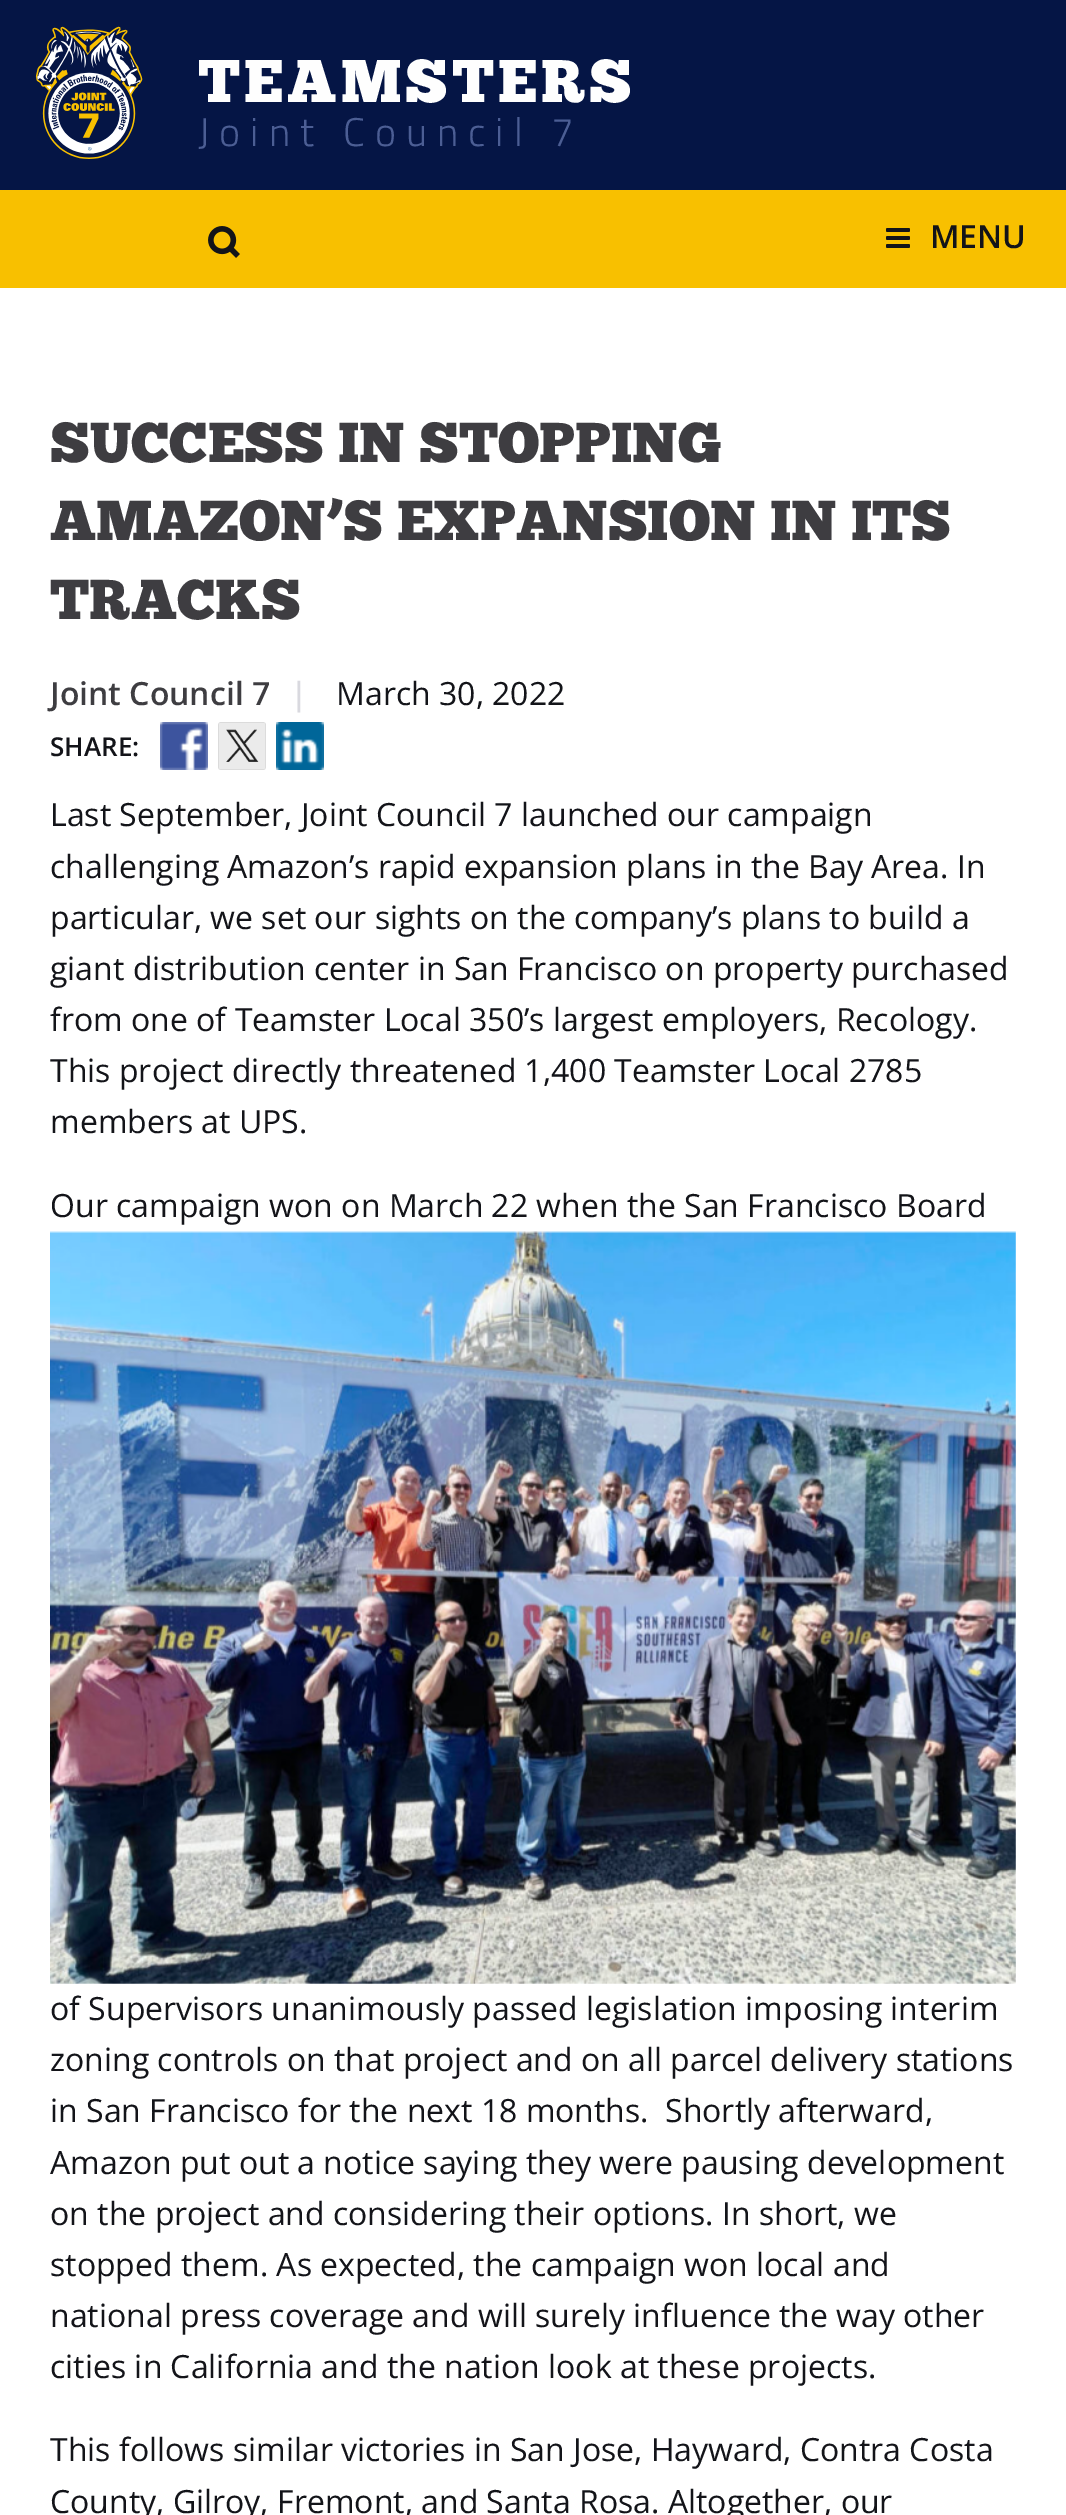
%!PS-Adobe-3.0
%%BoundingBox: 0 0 1066 2515
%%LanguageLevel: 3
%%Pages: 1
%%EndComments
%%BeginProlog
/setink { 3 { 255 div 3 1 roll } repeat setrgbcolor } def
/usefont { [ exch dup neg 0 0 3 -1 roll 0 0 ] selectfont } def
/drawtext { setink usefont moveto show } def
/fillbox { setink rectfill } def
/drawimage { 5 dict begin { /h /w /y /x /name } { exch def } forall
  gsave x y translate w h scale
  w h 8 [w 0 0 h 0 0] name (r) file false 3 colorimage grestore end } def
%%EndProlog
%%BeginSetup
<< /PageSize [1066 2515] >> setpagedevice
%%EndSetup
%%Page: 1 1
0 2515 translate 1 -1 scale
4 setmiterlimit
0 0 1066 2515 255 255 255 fillbox
0 0 1066 190 5 21 69 fillbox
(assets/img1.rgb) 35 26 108 133 drawimage
/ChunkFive-Regular 60 usefont
254 254 254 setink
198 102 moveto 4 0 (TEAMSTERS) ashow
/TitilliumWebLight-Light 40 usefont
76 94 148 setink
198 146 moveto 10 0 (Joint Council 7) ashow
0 190 1066 98 248 192 0 fillbox
(assets/img2.rgb) 208 226 32 32 drawimage
(assets/img3.rgb) 886 228 24 20 drawimage
(MENU) 930 248 /OpenSans-SemiBold 32 19 20 25 drawtext
(SUCCESS IN STOPPING) 50 462 /ChunkFive-Regular 56 62 61 65 drawtext
(AMAZON’S EXPANSION IN ITS) 50 540 /ChunkFive-Regular 56 62 61 65 drawtext
(TRACKS) 50 619 /ChunkFive-Regular 56 62 61 65 drawtext
(Joint Council 7) 50 705 /OpenSans-SemiBold 32 62 61 65 drawtext
(|) 290 705 /OpenSans-SemiBold 32 217 217 223 drawtext
(March 30, 2022) 336 705 /OpenSans-Regular 32 19 20 25 drawtext
(SHARE:) 50 756 /OpenSans-SemiBold 26 19 20 25 drawtext
(assets/img4.rgb) 160 722 48 48 drawimage
(assets/img5.rgb) 218 722 48 48 drawimage
(assets/img6.rgb) 276 722 48 48 drawimage
(Last September, Joint Council 7 launched our campaign) 50 826 /OpenSans-Regular 32 19 20 25 drawtext
(challenging Amazon’s rapid expansion plans in the Bay Area. In) 50 878 /OpenSans-Regular 32 19 20 25 drawtext
(particular, we set our sights on the company’s plans to build a) 50 929 /OpenSans-Regular 32 19 20 25 drawtext
(giant distribution center in San Francisco on property purchased) 50 980 /OpenSans-Regular 32 19 20 25 drawtext
(from one of Teamster Local 350’s largest employers, Recology.) 50 1031 /OpenSans-Regular 32 19 20 25 drawtext
(This project directly threatened 1,400 Teamster Local 2785) 50 1082 /OpenSans-Regular 32 19 20 25 drawtext
(members at UPS.) 50 1133 /OpenSans-Regular 32 19 20 25 drawtext
(Our campaign won on March 22 when the San Francisco Board) 50 1217 /OpenSans-Regular 32 19 20 25 drawtext
(assets/img7.rgb) 50 1231 966 753 drawimage
(of Supervisors unanimously passed legislation imposing interim) 50 2020 /OpenSans-Regular 32 19 20 25 drawtext
(zoning controls on that project and on all parcel delivery stations) 50 2071 /OpenSans-Regular 32 19 20 25 drawtext
(in San Francisco for the next 18 months.) 50 2122 /OpenSans-Regular 32 19 20 25 drawtext
(Shortly afterward,) 665 2122 /OpenSans-Regular 32 19 20 25 drawtext
(Amazon put out a notice saying they were pausing development) 50 2174 /OpenSans-Regular 32 19 20 25 drawtext
(on the project and considering their options. In short, we) 50 2225 /OpenSans-Regular 32 19 20 25 drawtext
(stopped them. As expected, the campaign won local and) 50 2276 /OpenSans-Regular 32 19 20 25 drawtext
(national press coverage and will surely influence the way other) 50 2327 /OpenSans-Regular 32 19 20 25 drawtext
(cities in California and the nation look at these projects.) 50 2378 /OpenSans-Regular 32 19 20 25 drawtext
(This follows similar victories in San Jose, Hayward, Contra Costa) 50 2461 /OpenSans-Regular 32 19 20 25 drawtext
(County, Gilroy, Fremont, and Santa Rosa. Altogether, our) 50 2513 /OpenSans-Regular 32 19 20 25 drawtext
showpage
%%EOF
